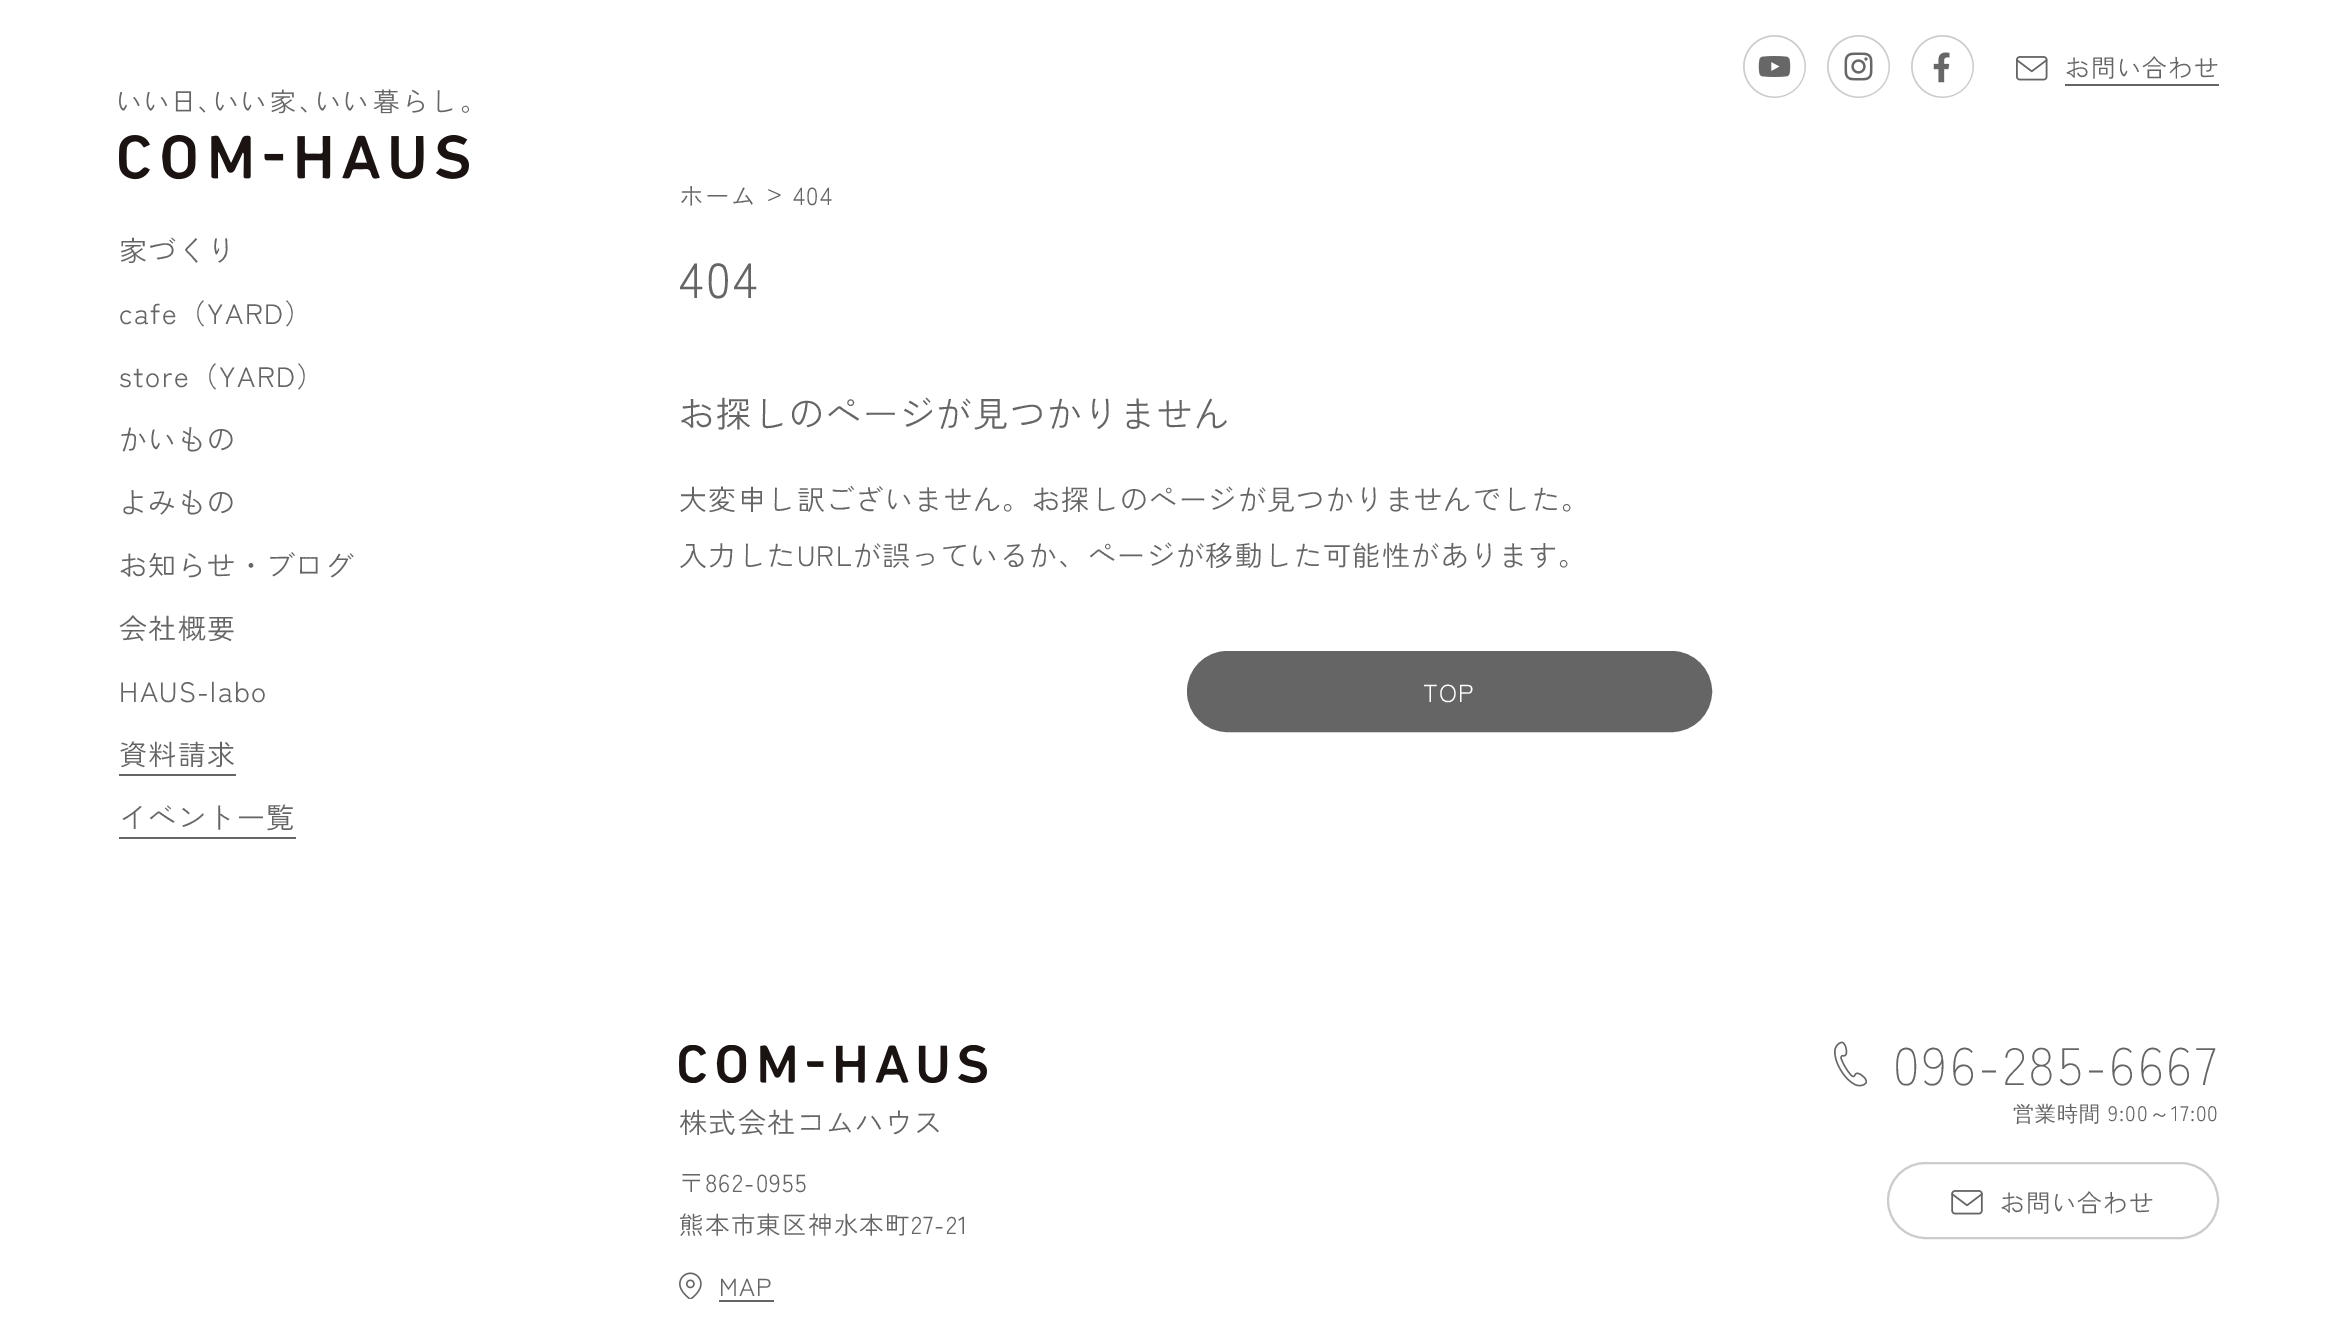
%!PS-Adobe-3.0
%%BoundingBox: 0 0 2337 1325
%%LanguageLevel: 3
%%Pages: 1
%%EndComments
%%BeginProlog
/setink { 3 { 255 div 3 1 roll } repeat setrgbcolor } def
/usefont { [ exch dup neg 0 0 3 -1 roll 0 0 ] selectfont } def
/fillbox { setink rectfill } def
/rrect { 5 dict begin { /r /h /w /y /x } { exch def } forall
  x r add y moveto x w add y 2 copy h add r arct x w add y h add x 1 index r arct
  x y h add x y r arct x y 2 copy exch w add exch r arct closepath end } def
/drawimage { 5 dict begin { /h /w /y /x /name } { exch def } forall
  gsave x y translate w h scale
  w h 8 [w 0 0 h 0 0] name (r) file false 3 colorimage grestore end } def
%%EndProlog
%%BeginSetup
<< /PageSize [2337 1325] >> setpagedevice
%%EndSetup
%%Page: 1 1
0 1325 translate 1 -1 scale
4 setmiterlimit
0 0 2337 1325 255 255 255 fillbox
(assets/img1.rgb) 119 89 350 91 drawimage
/ZenKakuGothicAntique-Regular 28 usefont
101 101 101 setink
119 261 moveto 1.4 0 (家づくり) ashow
119 324 moveto 1.4 0 (cafe（YARD）) ashow
119 387 moveto 1.4 0 (store（YARD）) ashow
119 450 moveto 1.4 0 (かいもの) ashow
119 513 moveto 1.4 0 (よみもの) ashow
119 576 moveto 1.4 0 (お知らせ・ブログ) ashow
119 639 moveto 1.4 0 (会社概要) ashow
119 702 moveto 1.4 0 (HAUS-labo) ashow
119 765 moveto 1.4 0 (資料請求) ashow
119 774 117 2 101 101 101 fillbox
119 828 moveto 1.4 0 (イベント一覧) ashow
119 837 177 2 101 101 101 fillbox
(assets/img2.rgb) 1743 35 63 63 drawimage
(assets/img3.rgb) 1827 35 63 63 drawimage
(assets/img4.rgb) 1911 35 63 63 drawimage
(assets/img5.rgb) 2016 56 32 25 drawimage
/ZenKakuGothicAntique-Regular 24.5 usefont
2065 77 moveto 1.25 0 (お問い合わせ) ashow
2065 84 154 2 101 101 101 fillbox
679 205 moveto 1.25 0 (ホーム) ashow
(assets/img6.rgb) 768 189 13 12 drawimage
793 205 moveto 1.25 0 (404) ashow
/ZenKakuGothicAntique-Regular 49 usefont
679 298 moveto 2.5 0 (404) ashow
/ZenKakuGothicAntique-Regular 35 usefont
679 427 moveto 1.75 0 (お探しのページが見つかりません) ashow
/ZenKakuGothicAntique-Regular 28 usefont
679 510 moveto 1.4 0 (大変申し訳ございません。お探しのページが見つかりませんでした。) ashow
679 566 moveto 1.4 0 (入力したURLが誤っているか、ページが移動した可能性があります。) ashow
1188 652 523 79 39.5 rrect gsave fill grestore
2 setlinewidth
stroke
/ZenKakuGothicAntique-Regular 24.5 usefont
255 255 255 setink
1423 702 moveto 1.25 0 (TOP) ashow
(assets/img7.rgb) 679 1045 308 38 drawimage
/ZenKakuGothicAntique-Regular 28 usefont
101 101 101 setink
679 1133 moveto 1.4 0 (株式会社コムハウス) ashow
/ZenKakuGothicAntique-Regular 24.5 usefont
679 1192 moveto 1.25 0 (〒862-0955) ashow
679 1234 moveto 1.25 0 (熊本市東区神水本町27-21) ashow
(assets/img8.rgb) 679 1272 23 27 drawimage
719 1296 moveto 1.25 0 (MAP) ashow
719 1300 55 2 101 101 101 fillbox
(assets/img9.rgb) 1834 1041 33 46 drawimage
/ZenKakuGothicAntique-Light 52.5 usefont
1893 1085 moveto 2.6 0 (096-285-6667) ashow
/WenQuanYiZenHei-Medium 21 usefont
2013 1121 moveto 1 0 (営業時間) ashow
/ZenKakuGothicAntique-Regular 21 usefont
2108 1121 moveto 1 0 (9:00) ashow
/WenQuanYiZenHei-Medium 21 usefont
2149 1121 moveto 1 0 (～) ashow
/ZenKakuGothicAntique-Regular 21 usefont
2171 1121 moveto 1 0 (17:00) ashow
204 204 204 setink
1888 1163 330 75 37.5 rrect stroke
(assets/img10.rgb) 1951 1190 32 25 drawimage
/ZenKakuGothicAntique-Regular 24.5 usefont
101 101 101 setink
2000 1212 moveto 1.25 0 (お問い合わせ) ashow
showpage
%%EOF
